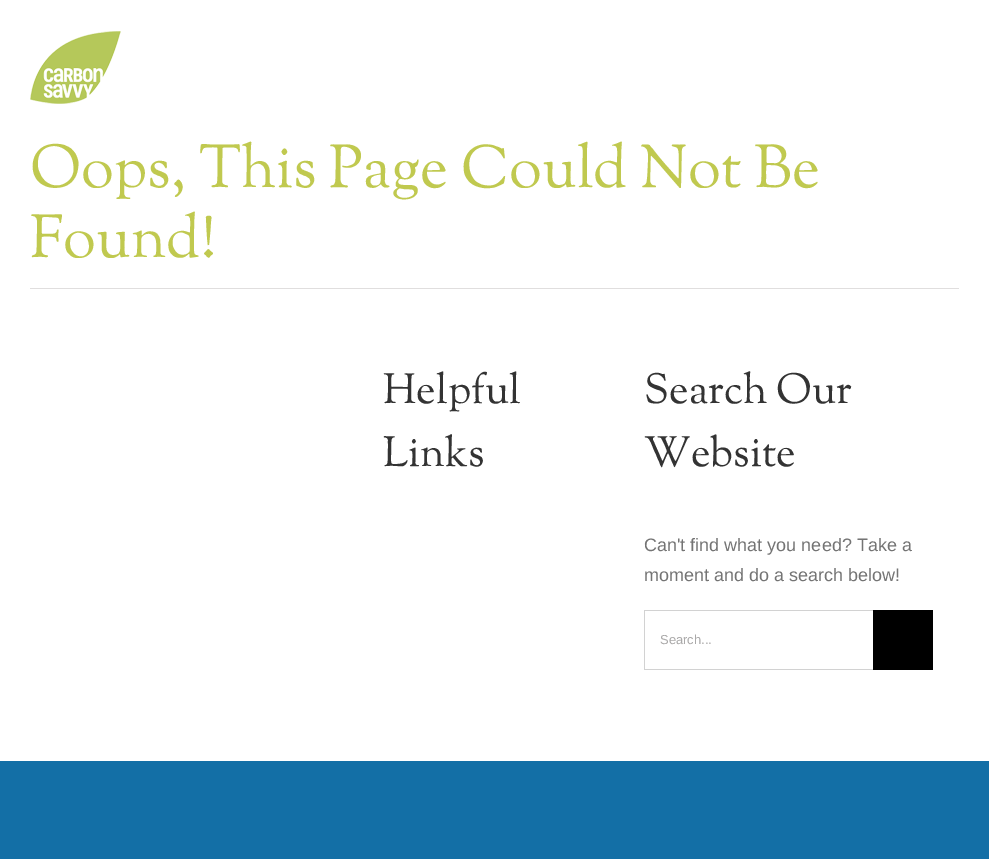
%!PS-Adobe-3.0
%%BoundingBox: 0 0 989 859
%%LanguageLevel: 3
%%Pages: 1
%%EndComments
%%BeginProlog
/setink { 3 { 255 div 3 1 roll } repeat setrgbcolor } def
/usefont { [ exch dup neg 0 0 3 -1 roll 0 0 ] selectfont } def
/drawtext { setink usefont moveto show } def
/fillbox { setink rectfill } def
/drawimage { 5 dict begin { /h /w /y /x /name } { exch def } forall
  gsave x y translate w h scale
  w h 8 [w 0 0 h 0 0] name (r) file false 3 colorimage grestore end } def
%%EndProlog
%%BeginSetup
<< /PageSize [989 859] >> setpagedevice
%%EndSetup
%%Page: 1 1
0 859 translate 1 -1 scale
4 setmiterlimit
0 0 989 859 255 255 255 fillbox
(assets/img1.rgb) 30 31 91 73 drawimage
30 288 929 1 224 222 222 fillbox
(Oops, This Page Could Not Be) 30 187 /SortsMillGoudy-Regular 60 192 201 79 drawtext
(Found!) 30 257 /SortsMillGoudy-Regular 60 192 201 79 drawtext
(Helpful) 383 403 /SortsMillGoudy-Regular 42 51 51 51 drawtext
(Links) 383 466 /SortsMillGoudy-Regular 42 51 51 51 drawtext
(Search Our) 644 403 /SortsMillGoudy-Regular 42 51 51 51 drawtext
(Website) 644 466 /SortsMillGoudy-Regular 42 51 51 51 drawtext
(Can't find what you need? Take a) 644 551 /LiberationSans-Regular 18 116 116 116 drawtext
(moment and do a search below!) 644 581 /LiberationSans-Regular 18 116 116 116 drawtext
644 610 229 1 210 210 210 fillbox
644 669 229 1 210 210 210 fillbox
644 610 1 60 210 210 210 fillbox
(Search...) 660 644 /LiberationSans-Regular 13 170 169 169 drawtext
873 610 60 60 0 0 0 fillbox
0 761 989 98 19 111 166 fillbox
showpage
%%EOF
